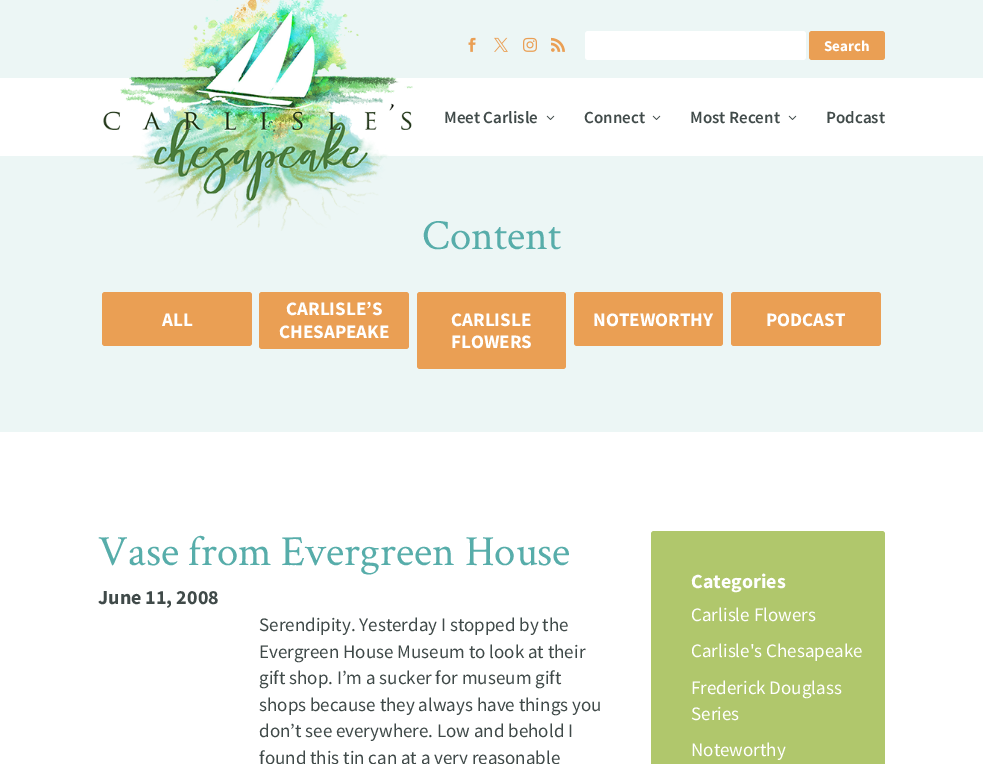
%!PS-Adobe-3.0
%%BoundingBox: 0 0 983 764
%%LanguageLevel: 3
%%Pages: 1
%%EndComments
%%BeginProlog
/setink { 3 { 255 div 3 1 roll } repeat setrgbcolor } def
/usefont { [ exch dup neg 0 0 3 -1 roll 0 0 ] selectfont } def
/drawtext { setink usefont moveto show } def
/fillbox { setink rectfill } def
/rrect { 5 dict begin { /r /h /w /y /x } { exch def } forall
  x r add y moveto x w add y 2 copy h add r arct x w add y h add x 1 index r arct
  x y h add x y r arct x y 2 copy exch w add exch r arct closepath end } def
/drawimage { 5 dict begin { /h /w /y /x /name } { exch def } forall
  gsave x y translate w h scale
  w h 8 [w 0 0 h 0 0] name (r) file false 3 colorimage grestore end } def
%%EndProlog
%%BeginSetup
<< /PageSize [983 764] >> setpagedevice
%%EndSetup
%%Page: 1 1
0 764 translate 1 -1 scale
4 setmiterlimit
0 0 983 764 255 255 255 fillbox
0 0 983 78 236 246 245 fillbox
(assets/img1.rgb) 468 37 8 15 drawimage
(assets/img2.rgb) 494 37 14 15 drawimage
(assets/img3.rgb) 523 37 14 15 drawimage
(assets/img4.rgb) 551 37 14 15 drawimage
255 255 255 setink
585 31 221 29 3 rrect fill
234 159 84 setink
809 31 76 29 3 rrect fill
(Search) 824 51 /SourceSansPro-Bold 15 255 255 255 drawtext
0 156 983 276 236 246 245 fillbox
(assets/img5.rgb) 103 0 310 231 drawimage
(Meet Carlisle) 444 123 /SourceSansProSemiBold-SemiBold 17 64 74 73 drawtext
(assets/img6.rgb) 546 115 9 5 drawimage
(Connect) 584 123 /SourceSansProSemiBold-SemiBold 17 64 74 73 drawtext
(assets/img6.rgb) 652 115 9 5 drawimage
(Most Recent) 690 123 /SourceSansProSemiBold-SemiBold 17 64 74 73 drawtext
(assets/img6.rgb) 788 115 9 5 drawimage
(Podcast) 826 123 /SourceSansProSemiBold-SemiBold 17 64 74 73 drawtext
(Content) 422 249 /CrimsonText-Regular 43 87 173 170 drawtext
234 159 84 setink
102 292 150 54 3 rrect fill
(ALL) 162 326 /SourceSansPro-Bold 19 255 255 255 drawtext
234 159 84 setink
259 292 150 57 3 rrect fill
(CARLISLE’S) 286 315 /SourceSansPro-Bold 19 255 255 255 drawtext
(CHESAPEAKE) 279 338 /SourceSansPro-Bold 19 255 255 255 drawtext
234 159 84 setink
417 292 149 77 3 rrect fill
(CARLISLE) 451 326 /SourceSansPro-Bold 19 255 255 255 drawtext
(FLOWERS) 451 348 /SourceSansPro-Bold 19 255 255 255 drawtext
234 159 84 setink
574 292 149 54 3 rrect fill
(NOTEWORTHY) 593 326 /SourceSansPro-Bold 19 255 255 255 drawtext
234 159 84 setink
731 292 150 54 3 rrect fill
(PODCAST) 766 326 /SourceSansPro-Bold 19 255 255 255 drawtext
(Vase from Evergreen House) 98 565 /CrimsonText-Regular 43 87 173 170 drawtext
(June 11, 2008) 98 604 /SourceSansPro-Bold 20 64 74 73 drawtext
(Serendipity. Yesterday I stopped by the) 259 631 /SourceSansPro-Regular 19 64 74 73 drawtext
(Evergreen House Museum to look at their) 259 658 /SourceSansPro-Regular 19 64 74 73 drawtext
(gift shop. I’m a sucker for museum gift) 259 684 /SourceSansPro-Regular 19 64 74 73 drawtext
(shops because they always have things you) 259 711 /SourceSansPro-Regular 19 64 74 73 drawtext
(don’t see everywhere. Low and behold I) 259 737 /SourceSansPro-Regular 19 64 74 73 drawtext
(found this tin can at a very reasonable) 259 764 /SourceSansPro-Regular 19 64 74 73 drawtext
176 199 108 setink
651 531 234 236 3 rrect fill
(Categories) 691 588 /SourceSansPro-Bold 20 255 255 255 drawtext
(Carlisle Flowers) 691 621 /SourceSansPro-Regular 19 255 255 255 drawtext
(Carlisle's Chesapeake) 691 657 /SourceSansPro-Regular 19 255 255 255 drawtext
(Frederick Douglass) 691 694 /SourceSansPro-Regular 19 255 255 255 drawtext
(Series) 691 720 /SourceSansPro-Regular 19 255 255 255 drawtext
(Noteworthy) 691 756 /SourceSansPro-Regular 19 255 255 255 drawtext
showpage
%%EOF
